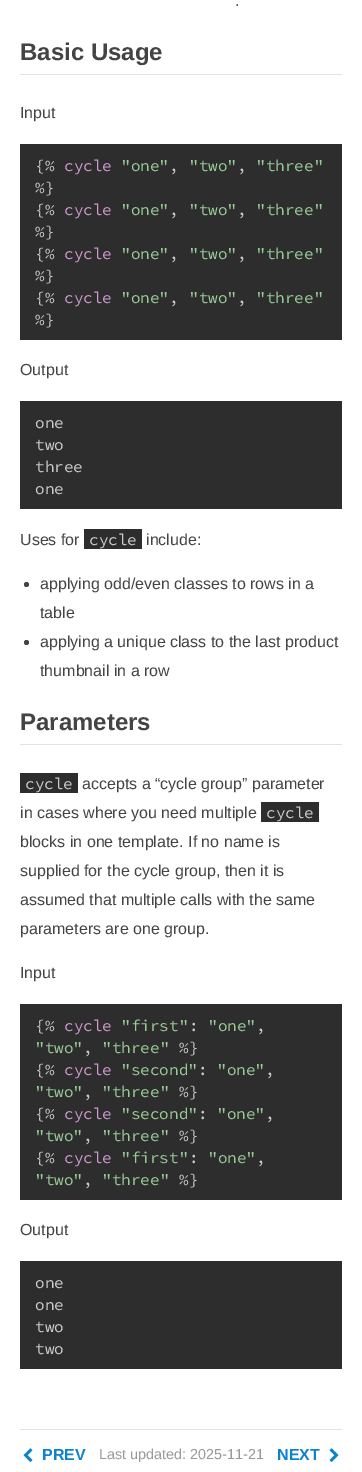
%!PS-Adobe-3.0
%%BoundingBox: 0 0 362 1472
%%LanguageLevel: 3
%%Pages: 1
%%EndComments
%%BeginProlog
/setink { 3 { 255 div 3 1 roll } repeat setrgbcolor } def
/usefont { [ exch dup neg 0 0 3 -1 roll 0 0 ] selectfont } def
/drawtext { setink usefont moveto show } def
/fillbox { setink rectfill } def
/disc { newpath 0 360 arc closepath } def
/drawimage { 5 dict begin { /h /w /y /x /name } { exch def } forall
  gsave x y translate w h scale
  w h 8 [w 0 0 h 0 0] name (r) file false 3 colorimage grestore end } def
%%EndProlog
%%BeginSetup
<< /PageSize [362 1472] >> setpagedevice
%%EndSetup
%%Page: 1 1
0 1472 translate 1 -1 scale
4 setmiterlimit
0 0 362 1472 255 255 255 fillbox
(.) 235 6 /LiberationSans-Regular 16 68 68 68 drawtext
20 74 322 1 227 227 227 fillbox
(Basic Usage) 20 60 /LiberationSans-Bold 24 68 68 68 drawtext
(Input) 20 118 /LiberationSans-Regular 16 68 68 68 drawtext
20 144 322 196 45 45 45 fillbox
({%) 35 171 /SourceCodePro-Regular 16 204 204 204 drawtext
(cycle) 64 171 /SourceCodePro-Regular 16 204 153 204 drawtext
("one") 121 171 /SourceCodePro-Regular 16 153 204 153 drawtext
(,) 169 171 /SourceCodePro-Regular 16 204 204 204 drawtext
("two") 189 171 /SourceCodePro-Regular 16 153 204 153 drawtext
(,) 237 171 /SourceCodePro-Regular 16 204 204 204 drawtext
("three") 256 171 /SourceCodePro-Regular 16 153 204 153 drawtext
(%}) 35 193 /SourceCodePro-Regular 16 204 204 204 drawtext
({%) 35 215 /SourceCodePro-Regular 16 204 204 204 drawtext
(cycle) 64 215 /SourceCodePro-Regular 16 204 153 204 drawtext
("one") 121 215 /SourceCodePro-Regular 16 153 204 153 drawtext
(,) 169 215 /SourceCodePro-Regular 16 204 204 204 drawtext
("two") 189 215 /SourceCodePro-Regular 16 153 204 153 drawtext
(,) 237 215 /SourceCodePro-Regular 16 204 204 204 drawtext
("three") 256 215 /SourceCodePro-Regular 16 153 204 153 drawtext
(%}) 35 237 /SourceCodePro-Regular 16 204 204 204 drawtext
({%) 35 259 /SourceCodePro-Regular 16 204 204 204 drawtext
(cycle) 64 259 /SourceCodePro-Regular 16 204 153 204 drawtext
("one") 121 259 /SourceCodePro-Regular 16 153 204 153 drawtext
(,) 169 259 /SourceCodePro-Regular 16 204 204 204 drawtext
("two") 189 259 /SourceCodePro-Regular 16 153 204 153 drawtext
(,) 237 259 /SourceCodePro-Regular 16 204 204 204 drawtext
("three") 256 259 /SourceCodePro-Regular 16 153 204 153 drawtext
(%}) 35 281 /SourceCodePro-Regular 16 204 204 204 drawtext
({%) 35 303 /SourceCodePro-Regular 16 204 204 204 drawtext
(cycle) 64 303 /SourceCodePro-Regular 16 204 153 204 drawtext
("one") 121 303 /SourceCodePro-Regular 16 153 204 153 drawtext
(,) 169 303 /SourceCodePro-Regular 16 204 204 204 drawtext
("two") 189 303 /SourceCodePro-Regular 16 153 204 153 drawtext
(,) 237 303 /SourceCodePro-Regular 16 204 204 204 drawtext
("three") 256 303 /SourceCodePro-Regular 16 153 204 153 drawtext
(%}) 35 325 /SourceCodePro-Regular 16 204 204 204 drawtext
(Output) 20 375 /LiberationSans-Regular 16 68 68 68 drawtext
20 401 322 108 45 45 45 fillbox
(one) 35 428 /SourceCodePro-Regular 16 204 204 204 drawtext
(two) 35 450 /SourceCodePro-Regular 16 204 204 204 drawtext
(three) 35 472 /SourceCodePro-Regular 16 204 204 204 drawtext
(one) 35 494 /SourceCodePro-Regular 16 204 204 204 drawtext
(Uses for) 20 545 /LiberationSans-Regular 16 68 68 68 drawtext
84 529 58 20 45 45 45 fillbox
(cycle) 89 545 /SourceCodePro-Regular 16 204 204 204 drawtext
(include:) 146 545 /LiberationSans-Regular 16 68 68 68 drawtext
26.5 584.5 2.5 disc fill
(applying odd/even classes to rows in a) 40 589 /LiberationSans-Regular 16 68 68 68 drawtext
(table) 40 618 /LiberationSans-Regular 16 68 68 68 drawtext
26.5 642.5 2.5 disc fill
(applying a unique class to the last product) 40 647 /LiberationSans-Regular 16 68 68 68 drawtext
(thumbnail in a row) 40 676 /LiberationSans-Regular 16 68 68 68 drawtext
20 744 322 1 227 227 227 fillbox
(Parameters) 20 730 /LiberationSans-Bold 24 68 68 68 drawtext
20 773 58 20 45 45 45 fillbox
(cycle) 25 789 /SourceCodePro-Regular 16 204 204 204 drawtext
(accepts a “cycle group” parameter) 82 789 /LiberationSans-Regular 16 68 68 68 drawtext
(in cases where you need multiple) 20 818 /LiberationSans-Regular 16 68 68 68 drawtext
261 802 58 20 45 45 45 fillbox
(cycle) 266 818 /SourceCodePro-Regular 16 204 204 204 drawtext
(blocks in one template. If no name is) 20 847 /LiberationSans-Regular 16 68 68 68 drawtext
(supplied for the cycle group, then it is) 20 876 /LiberationSans-Regular 16 68 68 68 drawtext
(assumed that multiple calls with the same) 20 905 /LiberationSans-Regular 16 68 68 68 drawtext
(parameters are one group.) 20 934 /LiberationSans-Regular 16 68 68 68 drawtext
(Input) 20 978 /LiberationSans-Regular 16 68 68 68 drawtext
20 1004 322 196 45 45 45 fillbox
({%) 35 1031 /SourceCodePro-Regular 16 204 204 204 drawtext
(cycle) 64 1031 /SourceCodePro-Regular 16 204 153 204 drawtext
("first") 121 1031 /SourceCodePro-Regular 16 153 204 153 drawtext
(:) 189 1031 /SourceCodePro-Regular 16 204 204 204 drawtext
("one") 208 1031 /SourceCodePro-Regular 16 153 204 153 drawtext
(,) 256 1031 /SourceCodePro-Regular 16 204 204 204 drawtext
("two") 35 1053 /SourceCodePro-Regular 16 153 204 153 drawtext
(,) 83 1053 /SourceCodePro-Regular 16 204 204 204 drawtext
("three") 102 1053 /SourceCodePro-Regular 16 153 204 153 drawtext
(%}) 179 1053 /SourceCodePro-Regular 16 204 204 204 drawtext
({%) 35 1075 /SourceCodePro-Regular 16 204 204 204 drawtext
(cycle) 64 1075 /SourceCodePro-Regular 16 204 153 204 drawtext
("second") 121 1075 /SourceCodePro-Regular 16 153 204 153 drawtext
(:) 198 1075 /SourceCodePro-Regular 16 204 204 204 drawtext
("one") 217 1075 /SourceCodePro-Regular 16 153 204 153 drawtext
(,) 265 1075 /SourceCodePro-Regular 16 204 204 204 drawtext
("two") 35 1097 /SourceCodePro-Regular 16 153 204 153 drawtext
(,) 83 1097 /SourceCodePro-Regular 16 204 204 204 drawtext
("three") 102 1097 /SourceCodePro-Regular 16 153 204 153 drawtext
(%}) 179 1097 /SourceCodePro-Regular 16 204 204 204 drawtext
({%) 35 1119 /SourceCodePro-Regular 16 204 204 204 drawtext
(cycle) 64 1119 /SourceCodePro-Regular 16 204 153 204 drawtext
("second") 121 1119 /SourceCodePro-Regular 16 153 204 153 drawtext
(:) 198 1119 /SourceCodePro-Regular 16 204 204 204 drawtext
("one") 217 1119 /SourceCodePro-Regular 16 153 204 153 drawtext
(,) 265 1119 /SourceCodePro-Regular 16 204 204 204 drawtext
("two") 35 1141 /SourceCodePro-Regular 16 153 204 153 drawtext
(,) 83 1141 /SourceCodePro-Regular 16 204 204 204 drawtext
("three") 102 1141 /SourceCodePro-Regular 16 153 204 153 drawtext
(%}) 179 1141 /SourceCodePro-Regular 16 204 204 204 drawtext
({%) 35 1163 /SourceCodePro-Regular 16 204 204 204 drawtext
(cycle) 64 1163 /SourceCodePro-Regular 16 204 153 204 drawtext
("first") 121 1163 /SourceCodePro-Regular 16 153 204 153 drawtext
(:) 189 1163 /SourceCodePro-Regular 16 204 204 204 drawtext
("one") 208 1163 /SourceCodePro-Regular 16 153 204 153 drawtext
(,) 256 1163 /SourceCodePro-Regular 16 204 204 204 drawtext
("two") 35 1185 /SourceCodePro-Regular 16 153 204 153 drawtext
(,) 83 1185 /SourceCodePro-Regular 16 204 204 204 drawtext
("three") 102 1185 /SourceCodePro-Regular 16 153 204 153 drawtext
(%}) 179 1185 /SourceCodePro-Regular 16 204 204 204 drawtext
(Output) 20 1235 /LiberationSans-Regular 16 68 68 68 drawtext
20 1261 322 108 45 45 45 fillbox
(one) 35 1288 /SourceCodePro-Regular 16 204 204 204 drawtext
(one) 35 1310 /SourceCodePro-Regular 16 204 204 204 drawtext
(two) 35 1332 /SourceCodePro-Regular 16 204 204 204 drawtext
(two) 35 1354 /SourceCodePro-Regular 16 204 204 204 drawtext
20 1429 322 1 227 227 227 fillbox
(assets/img1.rgb) 23 1448 10 14 drawimage
(PREV) 42 1460 /LiberationSans-Bold 16 14 131 205 drawtext
(Last updated: 2025-11-21) 99 1459 /LiberationSans-Regular 14.4 153 153 153 drawtext
(NEXT) 277 1460 /LiberationSans-Bold 16 14 131 205 drawtext
(assets/img2.rgb) 329 1448 10 14 drawimage
showpage
%%EOF
